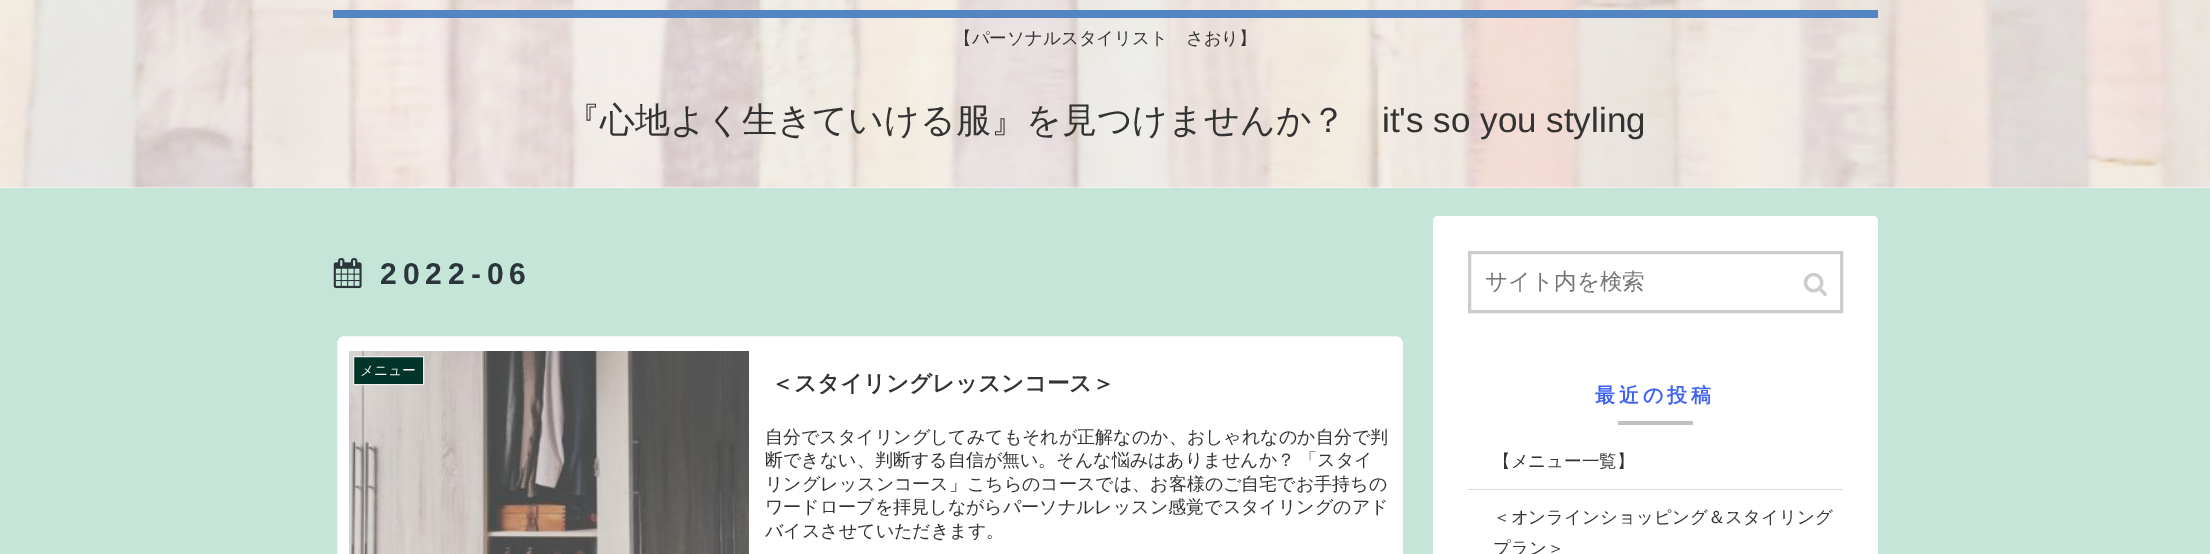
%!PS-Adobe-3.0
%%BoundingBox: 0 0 2210 554
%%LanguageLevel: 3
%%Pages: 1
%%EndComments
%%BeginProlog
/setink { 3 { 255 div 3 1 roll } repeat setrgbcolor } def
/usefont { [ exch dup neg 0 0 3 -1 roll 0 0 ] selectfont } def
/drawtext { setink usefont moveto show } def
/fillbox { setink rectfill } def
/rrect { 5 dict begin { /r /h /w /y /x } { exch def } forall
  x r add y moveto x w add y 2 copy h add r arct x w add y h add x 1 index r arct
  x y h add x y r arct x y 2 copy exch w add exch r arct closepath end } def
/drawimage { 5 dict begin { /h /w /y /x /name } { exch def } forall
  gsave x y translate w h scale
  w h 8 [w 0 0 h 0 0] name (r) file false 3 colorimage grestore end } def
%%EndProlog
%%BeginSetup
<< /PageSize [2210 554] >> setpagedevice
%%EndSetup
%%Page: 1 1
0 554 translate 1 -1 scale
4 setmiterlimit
0 0 2210 554 198 229 217 fillbox
0 187 2210 1 255 255 255 fillbox
(assets/img1.rgb) 0 0 2210 188 drawimage
333 10 1545 8 83 133 194 fillbox
(【パーソナルスタイリスト　さおり】) 954 44 /WenQuanYiZenHei-Medium 17.5 51 51 51 drawtext
(『心地よく生きていける服』を見つけませんか？) 565 132 /WenQuanYiZenHei-Medium 35 51 51 51 drawtext
(it's so you styling) 1382 132 /LiberationSans-Regular 35 51 51 51 drawtext
(assets/img2.rgb) 333 258 29 31 drawimage
/LiberationSans-Bold 30 usefont
42 54 59 setink
380 284 moveto 6 0 (2022-06) ashow
255 255 255 setink
335.5 334.5 1069 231 8.5 rrect gsave fill grestore
198 229 217 setink
3 setlinewidth
stroke
(assets/img3.rgb) 349 351 400 203 drawimage
2 52 41 setink
353.5 356.5 moveto 423.5 356.5 lineto 423.5 384.5 lineto 353.5 384.5 lineto closepath gsave fill grestore
238 238 238 setink
1 setlinewidth
stroke
(メニュー) 360 375 /WenQuanYiZenHei-Medium 13.75 255 255 255 drawtext
(＜スタイリングレッスンコース＞) 771 391 /WenQuanYiZenHei-Bold 22.5 51 51 51 drawtext
(自分でスタイリングしてみてもそれが正解なのか、おしゃれなのか自分で判) 765 443 /WenQuanYiZenHei-Medium 18 51 51 51 drawtext
765 466 moveto -1 0 32 (断できない、判断する自信が無い。そんな悩みはありませんか？ 「スタイ) widthshow
(リングレッスンコース」こちらのコースでは、お客様のご自宅でお手持ちの) 765 490 /WenQuanYiZenHei-Medium 18 51 51 51 drawtext
(ワードローブを拝見しながらパーソナルレッスン感覚でスタイリングのアド) 765 513 /WenQuanYiZenHei-Medium 18 51 51 51 drawtext
(バイスさせていただきます。) 765 537 /WenQuanYiZenHei-Medium 18 51 51 51 drawtext
255 255 255 setink
1433 216 445 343 5 rrect fill
204 204 204 setink
3 setlinewidth
1469.5 252.5 372 59 rectstroke
(サイト内を検索) 1485 289 /WenQuanYiZenHei-Medium 22.5 117 117 117 drawtext
(assets/img4.rgb) 1803 272 24 24 drawimage
/WenQuanYiZenHei-Bold 20 usefont
63 99 244 setink
1595 402 moveto 4 0 (最近の投稿) ashow
1618 421 75 4 192 192 192 fillbox
1468 489 375 1 221 221 221 fillbox
(【メニュー一覧】) 1493 467 /WenQuanYiZenHei-Medium 17.5 51 51 51 drawtext
(＜オンラインショッピング＆スタイリング) 1493 523 /WenQuanYiZenHei-Medium 17.5 51 51 51 drawtext
(プラン＞) 1493 554 /WenQuanYiZenHei-Medium 17.5 51 51 51 drawtext
showpage
%%EOF
